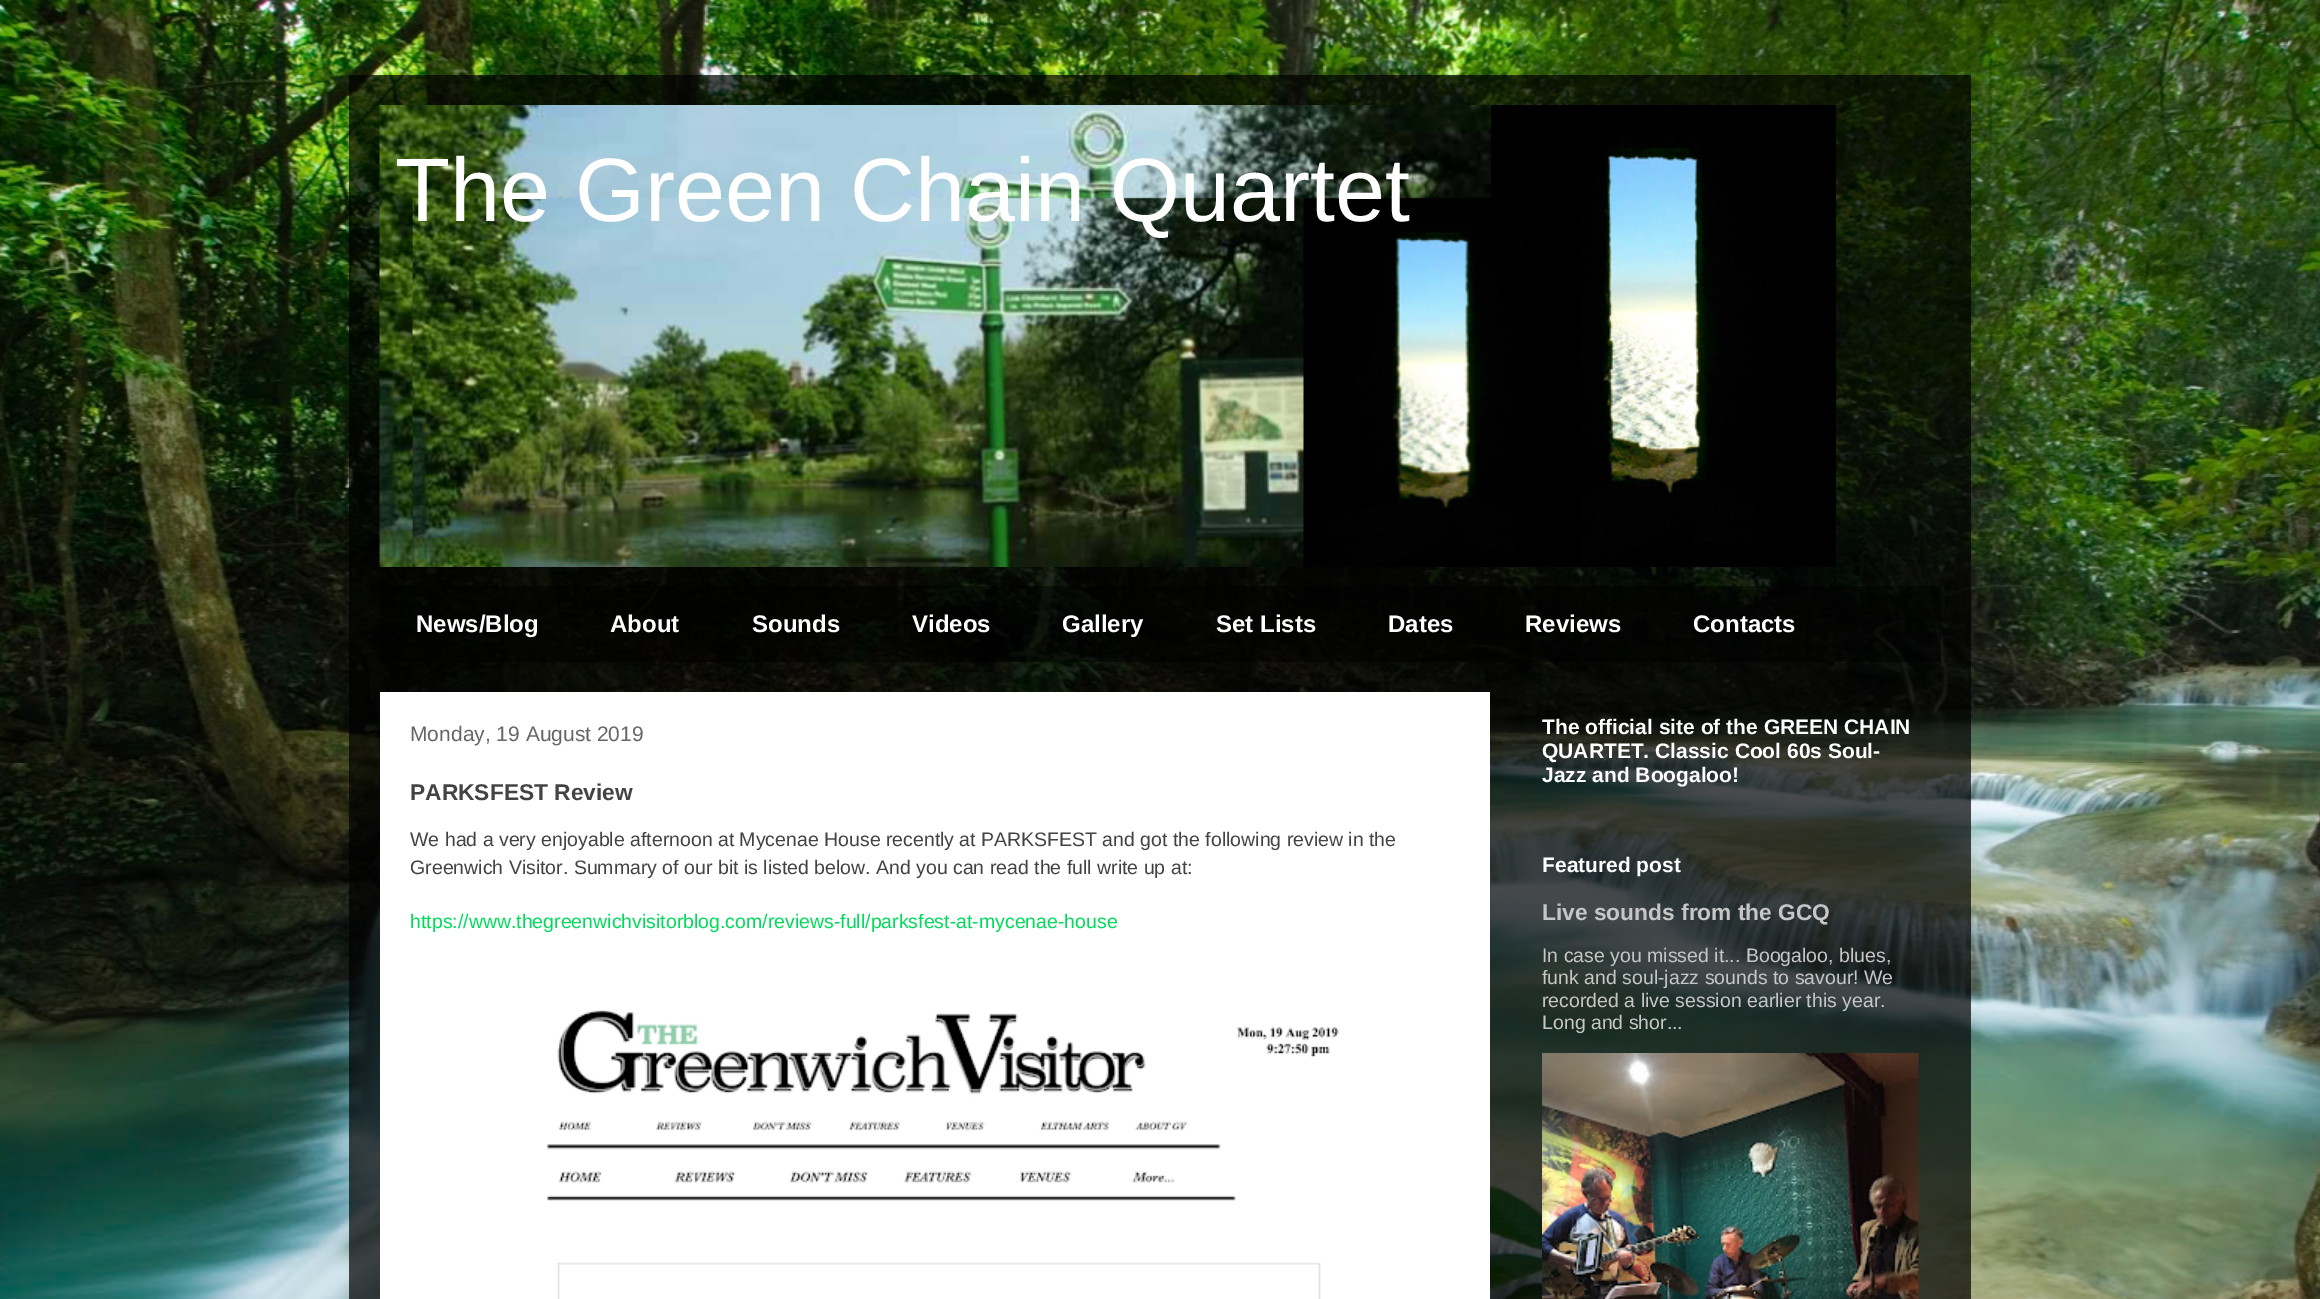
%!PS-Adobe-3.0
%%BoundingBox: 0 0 2320 1299
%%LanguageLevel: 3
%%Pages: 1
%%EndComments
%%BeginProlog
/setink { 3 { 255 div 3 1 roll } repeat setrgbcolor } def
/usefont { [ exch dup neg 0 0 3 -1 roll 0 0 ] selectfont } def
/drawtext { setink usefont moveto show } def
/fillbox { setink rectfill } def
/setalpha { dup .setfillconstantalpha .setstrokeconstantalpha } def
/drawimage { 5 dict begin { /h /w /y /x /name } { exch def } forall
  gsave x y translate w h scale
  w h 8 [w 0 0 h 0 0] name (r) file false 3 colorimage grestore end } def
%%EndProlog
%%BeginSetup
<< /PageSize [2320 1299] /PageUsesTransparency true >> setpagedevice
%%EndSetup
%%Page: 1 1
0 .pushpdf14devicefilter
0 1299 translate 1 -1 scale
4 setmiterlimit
0 0 2320 1299 255 255 255 fillbox
(assets/img1.rgb) 0 0 2320 1299 drawimage
0.7 setalpha
349 75 1622 1224 0 0 0 fillbox
1 setalpha
(assets/img2.rgb) 379 105 1457 462 drawimage
(The Green Chain Quartet) 395 221 /LiberationSans-Regular 90 255 255 255 drawtext
0.5 setalpha
380 586 1561 76 0 0 0 fillbox
1 setalpha
(News/Blog) 416 632 /LiberationSans-Bold 24 255 255 255 drawtext
(About) 610 632 /LiberationSans-Bold 24 255 255 255 drawtext
(Sounds) 752 632 /LiberationSans-Bold 24 255 255 255 drawtext
(Videos) 912 632 /LiberationSans-Bold 24 255 255 255 drawtext
(Gallery) 1062 632 /LiberationSans-Bold 24 255 255 255 drawtext
(Set Lists) 1216 632 /LiberationSans-Bold 24 255 255 255 drawtext
(Dates) 1388 632 /LiberationSans-Bold 24 255 255 255 drawtext
(Reviews) 1525 632 /LiberationSans-Bold 24 255 255 255 drawtext
(Contacts) 1693 632 /LiberationSans-Bold 24 255 255 255 drawtext
380 692 1110 607 255 255 255 fillbox
(Monday, 19 August 2019) 410 741 /LiberationSans-Regular 21 102 102 102 drawtext
(PARKSFEST Review) 410 800 /LiberationSans-Bold 22.75 67 67 67 drawtext
(We had a very enjoyable afternoon at Mycenae House recently at PARKSFEST and got the following review in the) 410 846 /LiberationSans-Regular 19.5 67 67 67 drawtext
(Greenwich Visitor. Summary of our bit is listed below. And you can read the full write up at:) 410 874 /LiberationSans-Regular 19.5 67 67 67 drawtext
(https://www.thegreenwichvisitorblog.com/reviews-full/parksfest-at-mycenae-house) 410 928 /LiberationSans-Regular 19.5 0 219 92 drawtext
(assets/img3.rgb) 547 1010 792 289 drawimage
(The official site of the GREEN CHAIN) 1542 734 /LiberationSans-Bold 21 255 255 255 drawtext
(QUARTET. Classic Cool 60s Soul-) 1542 758 /LiberationSans-Bold 21 255 255 255 drawtext
(Jazz and Boogaloo!) 1542 782 /LiberationSans-Bold 21 255 255 255 drawtext
(Featured post) 1542 872 /LiberationSans-Bold 21 255 255 255 drawtext
(Live sounds from the GCQ) 1542 920 /LiberationSans-Bold 22.75 198 198 198 drawtext
(In case you missed it... Boogaloo, blues,) 1542 962 /LiberationSans-Regular 19.5 198 198 198 drawtext
(funk and soul-jazz sounds to savour! We) 1542 984 /LiberationSans-Regular 19.5 198 198 198 drawtext
(recorded a live session earlier this year.) 1542 1007 /LiberationSans-Regular 19.5 198 198 198 drawtext
(Long and shor...) 1542 1029 /LiberationSans-Regular 19.5 198 198 198 drawtext
(assets/img4.rgb) 1542 1053 377 246 drawimage
.poppdf14devicefilter showpage
%%EOF
